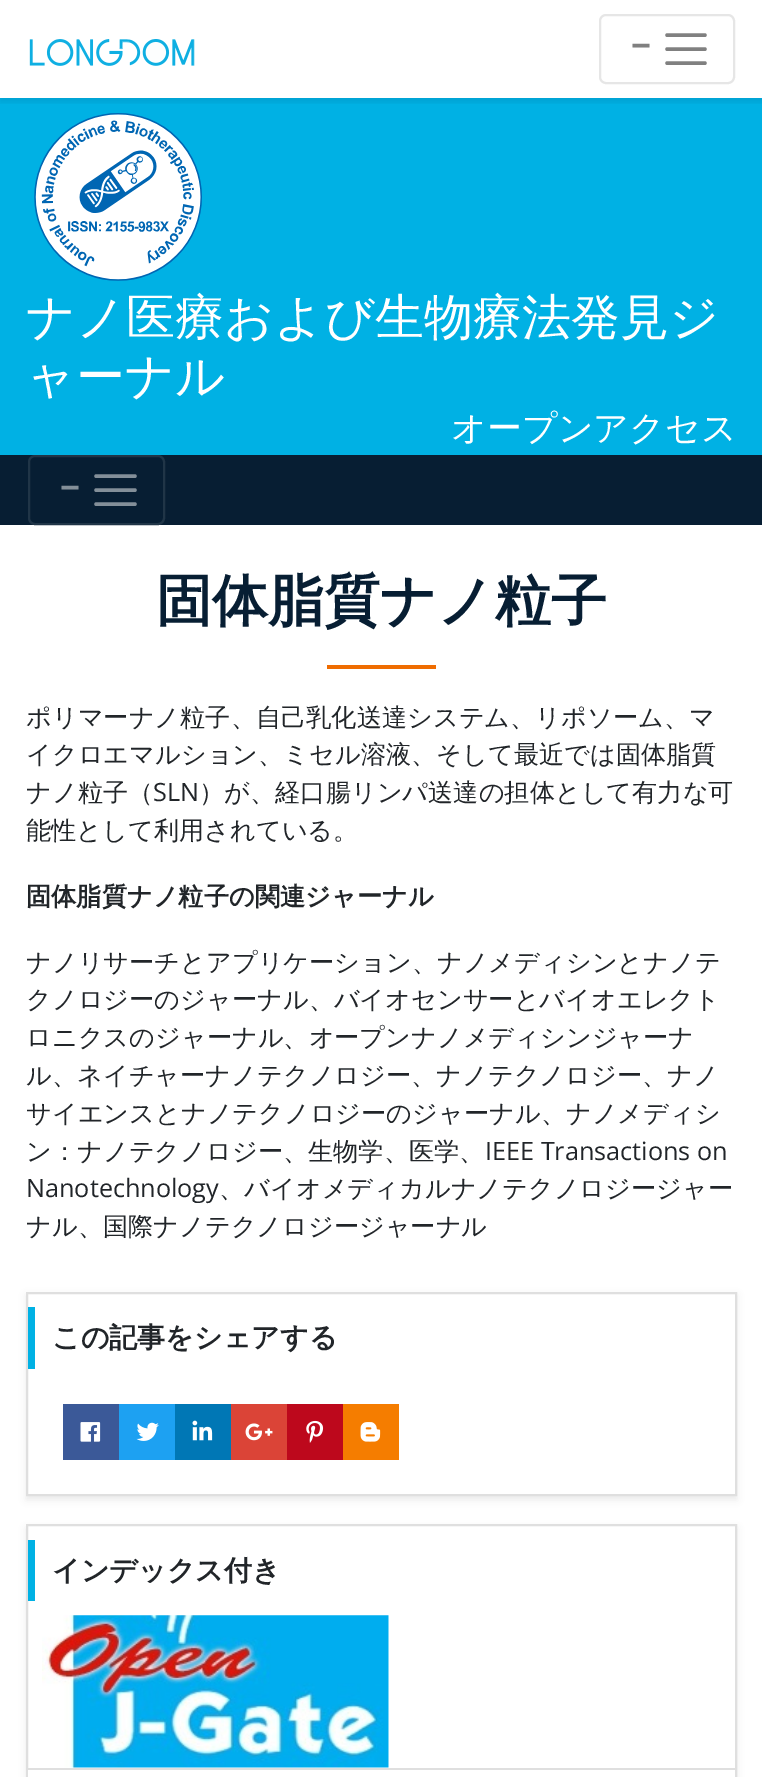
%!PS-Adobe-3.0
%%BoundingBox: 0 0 762 1777
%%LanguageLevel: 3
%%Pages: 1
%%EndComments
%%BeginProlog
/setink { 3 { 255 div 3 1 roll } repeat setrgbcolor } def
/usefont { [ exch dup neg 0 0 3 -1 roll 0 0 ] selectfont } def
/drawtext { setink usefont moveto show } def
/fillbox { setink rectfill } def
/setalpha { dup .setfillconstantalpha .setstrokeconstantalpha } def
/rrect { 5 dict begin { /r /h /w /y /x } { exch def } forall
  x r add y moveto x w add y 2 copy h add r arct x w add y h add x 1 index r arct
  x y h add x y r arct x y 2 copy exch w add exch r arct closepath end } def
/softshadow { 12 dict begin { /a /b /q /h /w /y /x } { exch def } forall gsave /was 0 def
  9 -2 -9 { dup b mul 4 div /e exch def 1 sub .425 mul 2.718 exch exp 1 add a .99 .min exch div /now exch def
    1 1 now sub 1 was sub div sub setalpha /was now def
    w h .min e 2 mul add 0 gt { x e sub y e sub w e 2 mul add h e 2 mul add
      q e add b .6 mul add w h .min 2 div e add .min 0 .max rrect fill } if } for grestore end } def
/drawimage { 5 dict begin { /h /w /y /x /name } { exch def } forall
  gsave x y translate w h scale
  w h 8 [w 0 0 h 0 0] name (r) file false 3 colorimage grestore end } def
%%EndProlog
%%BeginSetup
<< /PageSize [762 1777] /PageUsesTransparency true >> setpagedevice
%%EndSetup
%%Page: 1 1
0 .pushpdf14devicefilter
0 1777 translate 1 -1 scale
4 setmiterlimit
0 0 762 1777 255 255 255 fillbox
0 98 762 357 0 177 228 fillbox
gsave
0 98 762 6 rectclip
0 0 0 setink
0 4 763 98 0 3.5 0.07 softshadow
grestore
(assets/img1.rgb) 29 39 166 27 drawimage
230 230 230 setink
2 setlinewidth
600 15 134 68 6 rrect stroke
(−) 631 58 /OpenSans-Bold 35 128 128 128 drawtext
3.5 setlinewidth
1 setlinecap
667 35 moveto 705 35 lineto 667 49 moveto 705 49 lineto 667 63 moveto 705 63 lineto stroke
(assets/img2.rgb) 34 113 168 168 drawimage
(ナノ医療および生物療法発見ジ) 26 334 /WenQuanYiZenHei-Medium 49 255 255 255 drawtext
(ャーナル) 26 393 /WenQuanYiZenHei-Medium 49 255 255 255 drawtext
(オープンアクセス) 451 440 /WenQuanYiZenHei-Medium 35 255 255 255 drawtext
0 455 762 70 7 30 51 fillbox
32 53 71 setink
2 setlinewidth
0 setlinecap
29 456 135 68 6 rrect stroke
(−) 60 500 /OpenSans-Bold 35 131 143 153 drawtext
3.5 setlinewidth
1 setlinecap
96 476 moveto 135 476 lineto 96 490 moveto 135 490 lineto 96 504 moveto 135 504 lineto stroke
(固体脂質ナノ粒子) 156 620 /WenQuanYiZenHei-Bold 56 7 30 51 drawtext
327 665 109 4 239 108 0 fillbox
(ポリマーナノ粒子、自己乳化送達システム、リポソーム、マ) 26 726 /WenQuanYiZenHei-Medium 25.2 33 37 41 drawtext
(イクロエマルション、ミセル溶液、そして最近では固体脂質) 26 763 /WenQuanYiZenHei-Medium 25.2 33 37 41 drawtext
(ナノ粒子（) 26 801 /WenQuanYiZenHei-Medium 25.2 33 37 41 drawtext
(SLN) 153 801 /OpenSans-Regular 25.2 33 37 41 drawtext
(）が、経口腸リンパ送達の担体として有力な可) 199 801 /WenQuanYiZenHei-Medium 25.2 33 37 41 drawtext
(能性として利用されている。) 26 839 /WenQuanYiZenHei-Medium 25.2 33 37 41 drawtext
(固体脂質ナノ粒子の関連ジャーナル) 26 905 /WenQuanYiZenHei-Bold 25.2 33 37 41 drawtext
(ナノリサーチとアプリケーション、ナノメディシンとナノテ) 26 971 /WenQuanYiZenHei-Medium 25.2 33 37 41 drawtext
(クノロジーのジャーナル、バイオセンサーとバイオエレクト) 26 1008 /WenQuanYiZenHei-Medium 25.2 33 37 41 drawtext
(ロニクスのジャーナル、オープンナノメディシンジャーナ) 26 1046 /WenQuanYiZenHei-Medium 25.2 33 37 41 drawtext
(ル、ネイチャーナノテクノロジー、ナノテクノロジー、ナノ) 26 1084 /WenQuanYiZenHei-Medium 25.2 33 37 41 drawtext
(サイエンスとナノテクノロジーのジャーナル、ナノメディシ) 26 1122 /WenQuanYiZenHei-Medium 25.2 33 37 41 drawtext
(ン：ナノテクノロジー、生物学、医学、) 26 1160 /WenQuanYiZenHei-Medium 25.2 33 37 41 drawtext
(IEEE Transactions on) 485 1160 /OpenSans-Regular 25.2 33 37 41 drawtext
(Nanotechnology) 26 1197 /OpenSans-Regular 25.2 33 37 41 drawtext
(、バイオメディカルナノテクノロジージャー) 219 1197 /WenQuanYiZenHei-Medium 25.2 33 37 41 drawtext
(ナル、国際ナノテクノロジージャーナル) 26 1235 /WenQuanYiZenHei-Medium 25.2 33 37 41 drawtext
0 0 0 setink
26 1295 711 205 0 3.5 0.07 softshadow
255 255 255 setink
27 1293 moveto 736 1293 lineto 736 1495 lineto 27 1495 lineto closepath gsave fill grestore
223 223 223 setink
2 setlinewidth
0 setlinecap
stroke
28 1307 7 62 0 177 228 fillbox
(この記事をシェアする) 52 1347 /WenQuanYiZenHei-Bold 28 33 37 41 drawtext
63 1404 56 56 59 89 152 fillbox
(assets/img3.rgb) 80 1422 21 20 drawimage
119 1404 56 56 29 161 242 fillbox
(assets/img4.rgb) 136 1422 23 19 drawimage
175 1404 56 56 0 119 181 fillbox
(assets/img5.rgb) 192 1420 21 21 drawimage
231 1404 56 56 219 68 55 fillbox
(assets/img6.rgb) 245 1423 28 18 drawimage
287 1404 56 56 189 8 28 fillbox
(assets/img7.rgb) 306 1420 18 23 drawimage
343 1404 56 56 245 125 0 fillbox
(assets/img8.rgb) 360 1422 21 20 drawimage
0 0 0 setink
26 1528 711 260 0 3.5 0.07 softshadow
28 1526 707 242 255 255 255 fillbox
223 223 223 setink
27 1525 709 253 rectstroke
28 1540 7 61 0 177 228 fillbox
(インデックス付き) 52 1580 /WenQuanYiZenHei-Bold 28 33 37 41 drawtext
(assets/img9.rgb) 42 1615 347 153 drawimage
28 1770 707 7 255 255 255 fillbox
28 1768 707 2 223 223 223 fillbox
.poppdf14devicefilter showpage
%%EOF
